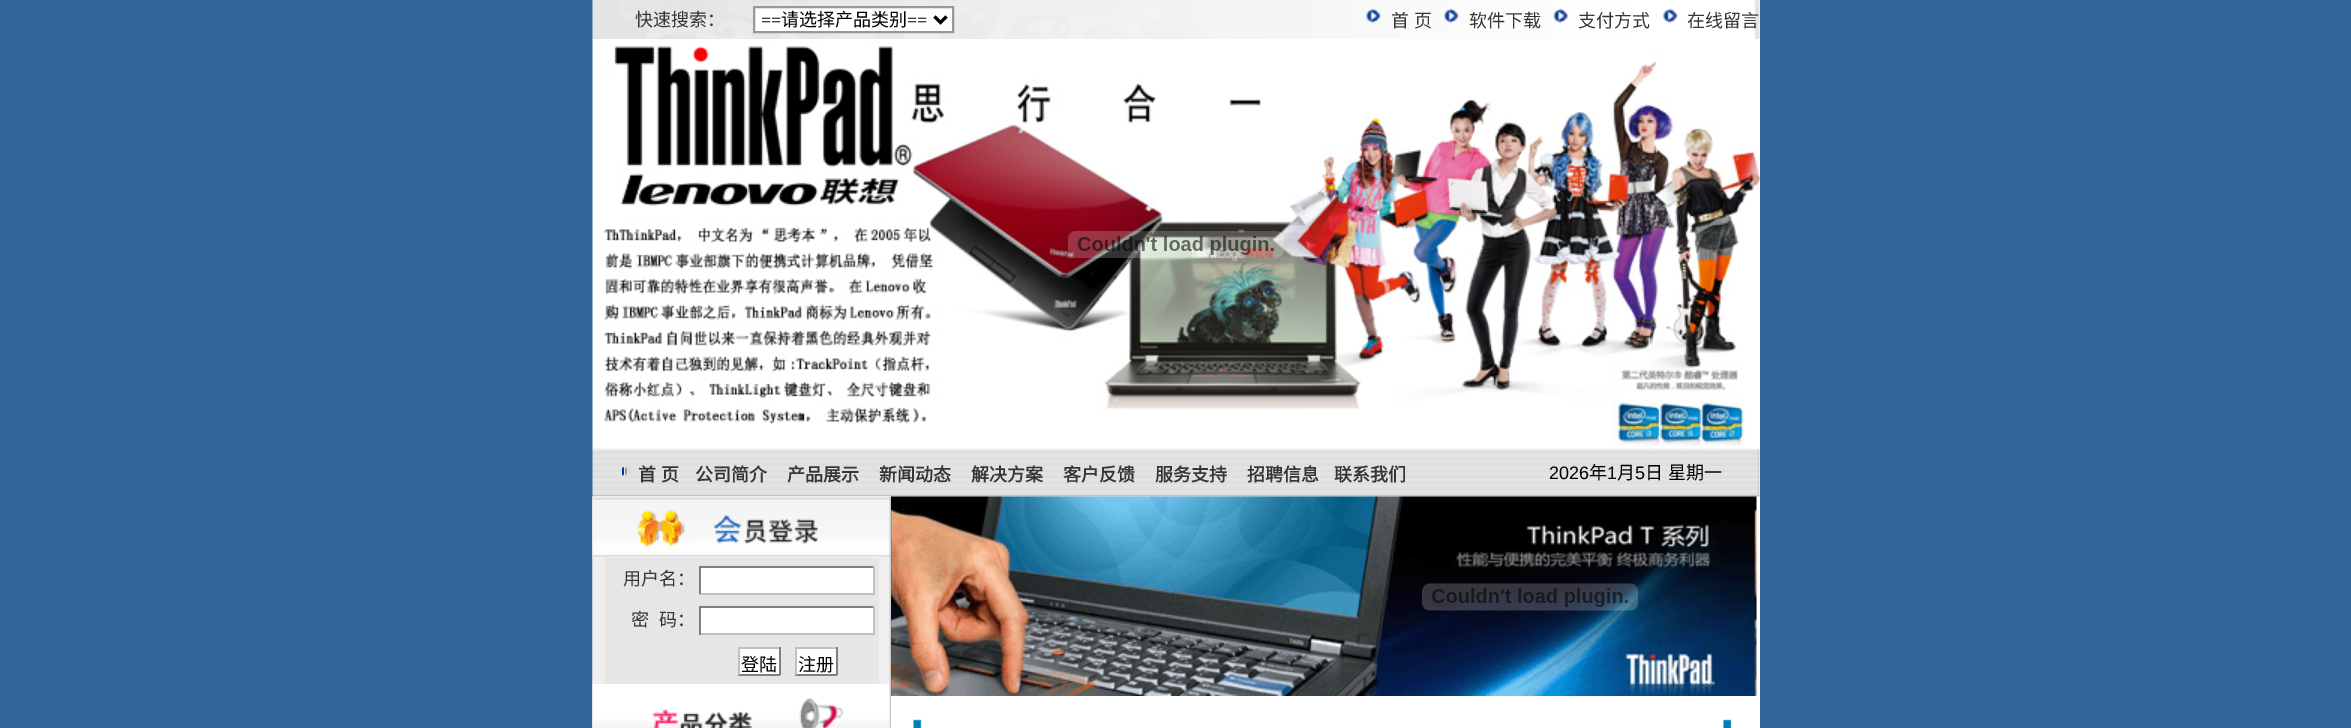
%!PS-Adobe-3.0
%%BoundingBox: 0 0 2351 728
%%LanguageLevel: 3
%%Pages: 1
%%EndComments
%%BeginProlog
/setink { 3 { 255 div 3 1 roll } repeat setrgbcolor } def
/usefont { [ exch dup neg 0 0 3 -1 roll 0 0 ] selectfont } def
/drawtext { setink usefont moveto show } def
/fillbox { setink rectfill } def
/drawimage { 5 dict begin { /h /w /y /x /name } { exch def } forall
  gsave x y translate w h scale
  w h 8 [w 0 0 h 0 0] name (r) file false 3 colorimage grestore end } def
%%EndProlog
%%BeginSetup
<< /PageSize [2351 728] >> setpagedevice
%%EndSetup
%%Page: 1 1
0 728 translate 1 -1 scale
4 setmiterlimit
0 0 2351 728 51 102 153 fillbox
593 0 1167 728 255 255 255 fillbox
(assets/img1.rgb) 592 0 1168 39 drawimage
(快速搜索：) 635 26 /NotoSansCJKSC-Regular 18 54 54 54 drawtext
255 255 255 setink
754 7 moveto 953 7 lineto 953 32 lineto 754 32 lineto closepath gsave fill grestore
153 153 153 setink
2 setlinewidth
stroke
0 0 0 setink
3 setlinewidth
934.5 16.5 moveto 940.5 22.5 lineto 946.5 16.5 lineto stroke
(==) 761 26 /LiberationSerif-Regular 18 0 0 0 drawtext
(请选择产品类别) 781 26 /NotoSansCJKSC-Regular 18 0 0 0 drawtext
(==) 907 26 /LiberationSerif-Regular 18 0 0 0 drawtext
(assets/img2.rgb) 1366 8 15 15 drawimage
/NotoSansCJKSC-Regular 18 usefont
54 54 54 setink
1391 27 moveto 1 0 32 (首 页) widthshow
(assets/img3.rgb) 1444 8 15 15 drawimage
(软件下载) 1469 27 /NotoSansCJKSC-Regular 18 54 54 54 drawtext
(assets/img4.rgb) 1553 8 15 15 drawimage
(支付方式) 1578 27 /NotoSansCJKSC-Regular 18 54 54 54 drawtext
(assets/img5.rgb) 1663 8 15 15 drawimage
(在线留言) 1687 27 /NotoSansCJKSC-Regular 18 54 54 54 drawtext
(assets/img6.rgb) 592 39 1168 410 drawimage
(assets/img7.rgb) 1068 231 216 27 drawimage
(assets/img8.rgb) 592 448 1168 49 drawimage
(assets/img9.rgb) 622 466 8 10 drawimage
/NotoSansCJKSC-Bold 18 usefont
638 481 moveto 1 0 32 (首 页) widthshow
(公司简介) 695 481 /NotoSansCJKSC-Bold 18 54 54 54 drawtext
(产品展示) 787 481 /NotoSansCJKSC-Bold 18 54 54 54 drawtext
(新闻动态) 879 481 /NotoSansCJKSC-Bold 18 54 54 54 drawtext
(解决方案) 971 481 /NotoSansCJKSC-Bold 18 54 54 54 drawtext
(客户反馈) 1063 481 /NotoSansCJKSC-Bold 18 54 54 54 drawtext
(服务支持) 1155 481 /NotoSansCJKSC-Bold 18 54 54 54 drawtext
(招聘信息) 1247 481 /NotoSansCJKSC-Bold 18 54 54 54 drawtext
(联系我们) 1334 481 /NotoSansCJKSC-Bold 18 54 54 54 drawtext
(2026) 1549 479 /LiberationSans-Regular 18 0 0 0 drawtext
(年) 1589 479 /NotoSansCJKSC-Regular 18 0 0 0 drawtext
(1) 1607 479 /LiberationSans-Regular 18 0 0 0 drawtext
(月) 1617 479 /NotoSansCJKSC-Regular 18 0 0 0 drawtext
(5) 1635 479 /LiberationSans-Regular 18 0 0 0 drawtext
/NotoSansCJKSC-Regular 18 usefont
1645 479 moveto 1 0 32 (日 星期一) widthshow
(assets/img10.rgb) 592 496 299 232 drawimage
(assets/img11.rgb) 592 496 299 232 drawimage
(assets/img12.rgb) 592 496 298 62 drawimage
605 558 274 126 230 230 230 fillbox
(用户名：) 623 585 /NotoSansCJKSC-Regular 18 54 54 54 drawtext
701 568 172 25 255 255 255 fillbox
699 566 176 2 128 128 128 fillbox
873 566 2 28 192 192 192 fillbox
699 593 176 2 192 192 192 fillbox
699 566 2 28 128 128 128 fillbox
(密) 631 626 /NotoSansCJKSC-Regular 18 54 54 54 drawtext
(码：) 659 626 /NotoSansCJKSC-Regular 18 54 54 54 drawtext
701 608 172 25 255 255 255 fillbox
699 606 176 2 128 128 128 fillbox
873 606 2 29 192 192 192 fillbox
699 633 176 2 192 192 192 fillbox
699 606 2 29 128 128 128 fillbox
740 649 39 25 255 255 255 fillbox
738 647 42 2 192 192 192 fillbox
779 647 2 28 128 128 128 fillbox
738 674 42 2 128 128 128 fillbox
738 647 2 28 192 192 192 fillbox
(登陆) 741 671 /NotoSansCJKSC-Regular 18 0 0 0 drawtext
797 649 39 25 255 255 255 fillbox
795 647 42 2 192 192 192 fillbox
836 647 2 28 128 128 128 fillbox
795 674 42 2 128 128 128 fillbox
795 647 2 28 192 192 192 fillbox
(注册) 798 671 /NotoSansCJKSC-Regular 18 0 0 0 drawtext
(assets/img13.rgb) 592 684 298 44 drawimage
(assets/img14.rgb) 891 496 866 200 drawimage
(assets/img15.rgb) 1422 583 216 28 drawimage
(assets/img16.rgb) 913 719 819 9 drawimage
showpage
%%EOF
